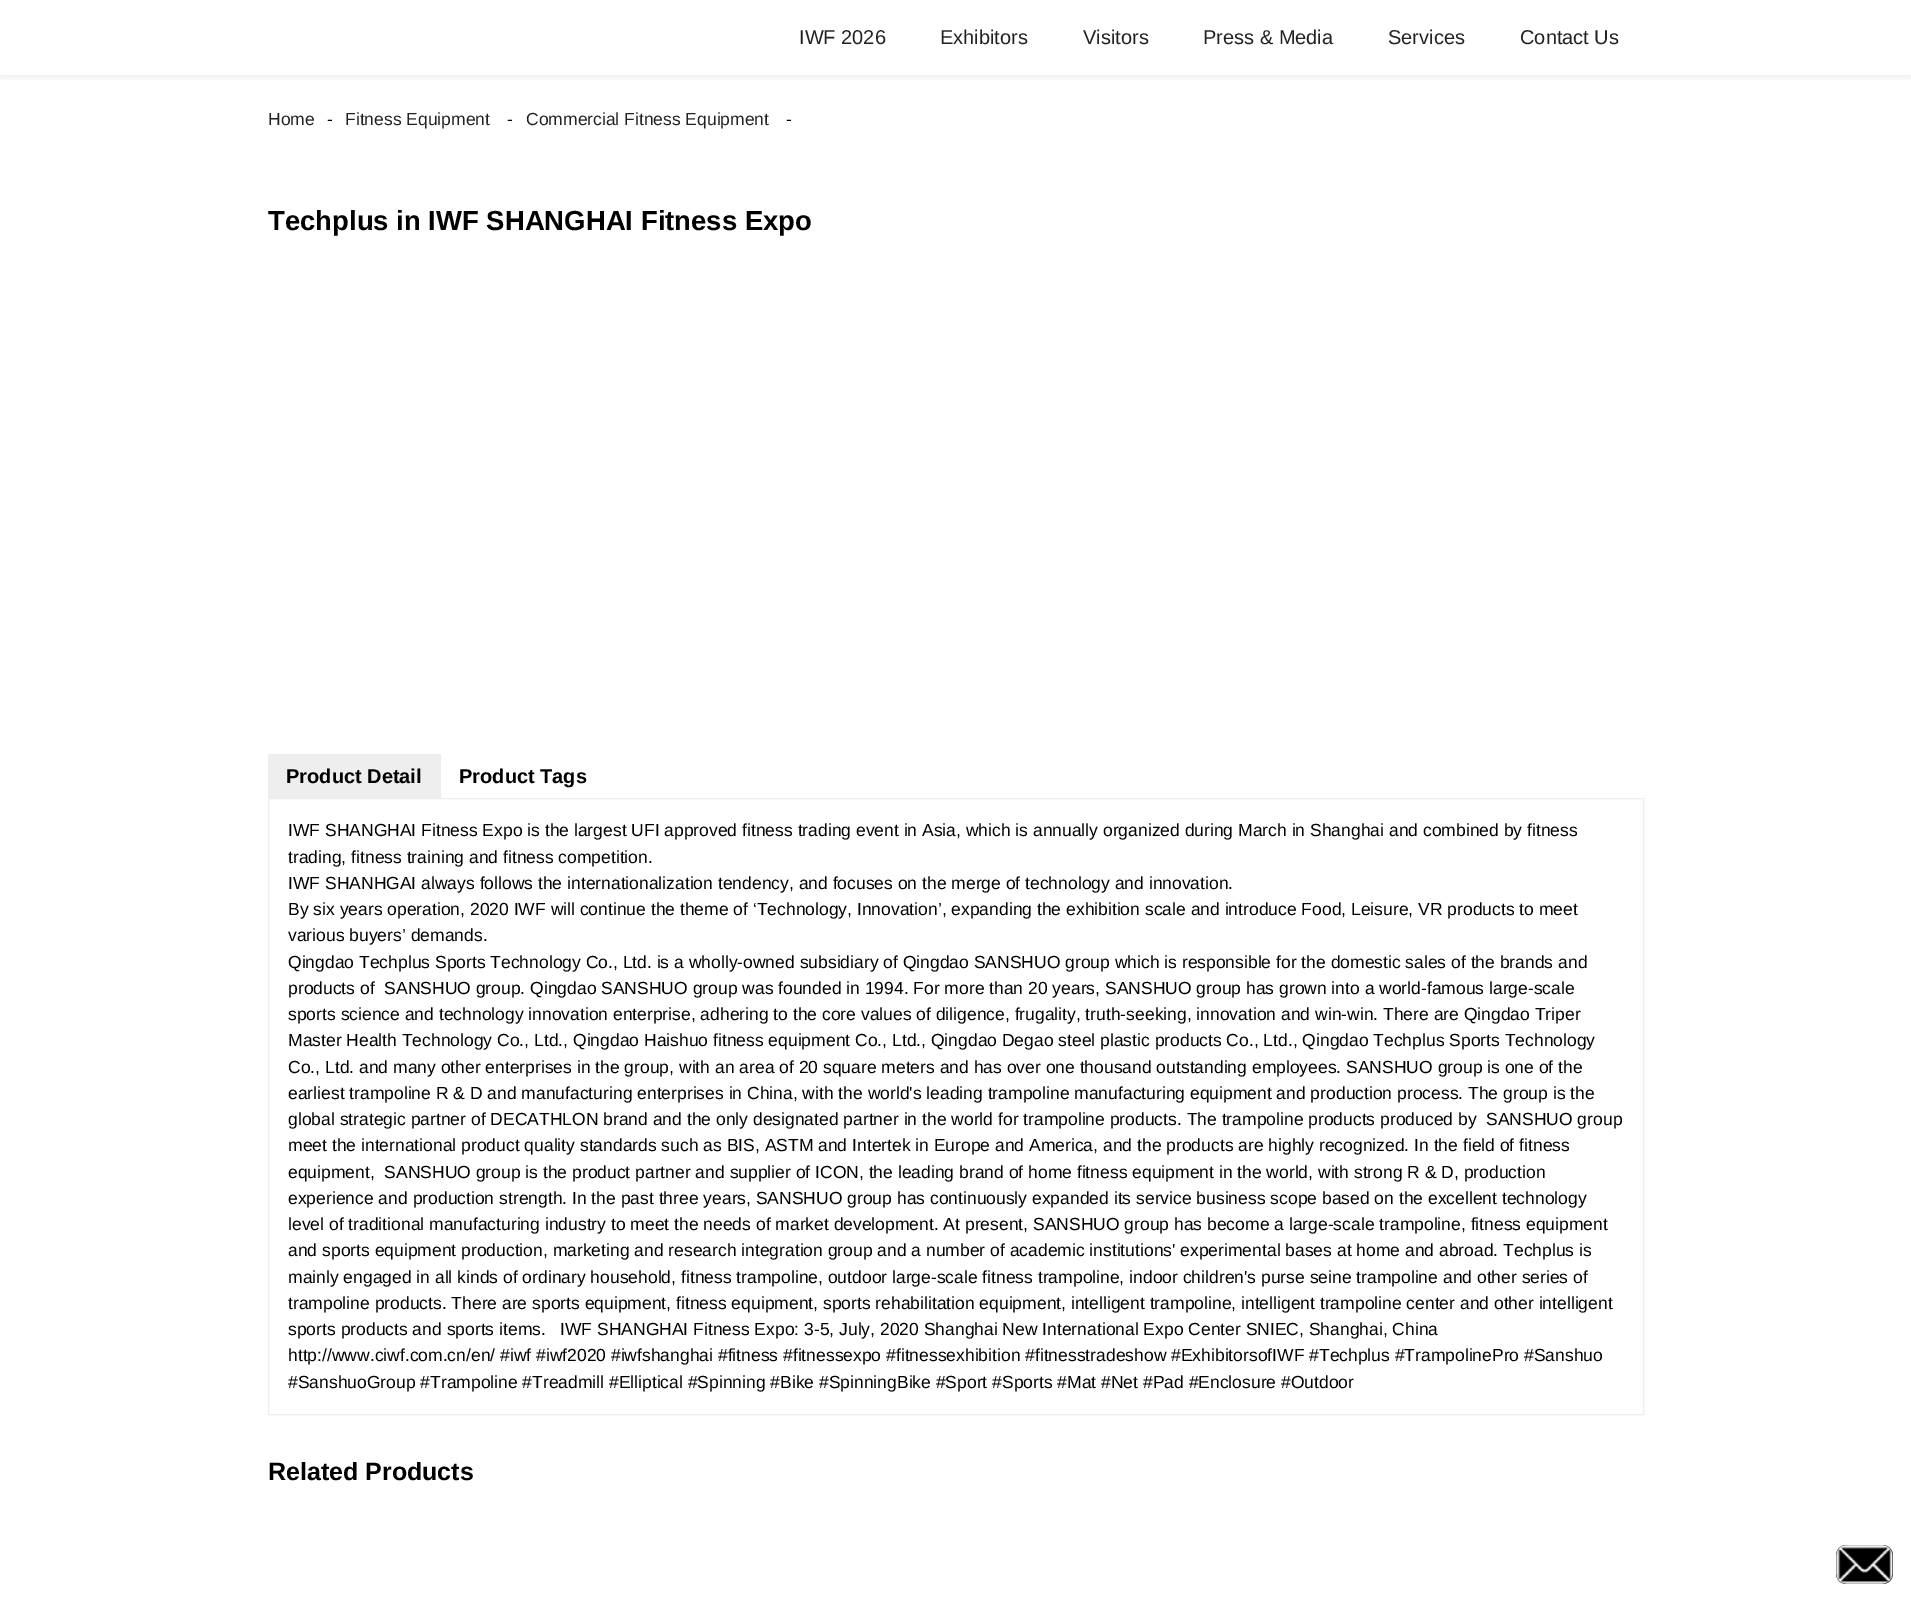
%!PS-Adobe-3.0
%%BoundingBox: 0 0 1911 1614
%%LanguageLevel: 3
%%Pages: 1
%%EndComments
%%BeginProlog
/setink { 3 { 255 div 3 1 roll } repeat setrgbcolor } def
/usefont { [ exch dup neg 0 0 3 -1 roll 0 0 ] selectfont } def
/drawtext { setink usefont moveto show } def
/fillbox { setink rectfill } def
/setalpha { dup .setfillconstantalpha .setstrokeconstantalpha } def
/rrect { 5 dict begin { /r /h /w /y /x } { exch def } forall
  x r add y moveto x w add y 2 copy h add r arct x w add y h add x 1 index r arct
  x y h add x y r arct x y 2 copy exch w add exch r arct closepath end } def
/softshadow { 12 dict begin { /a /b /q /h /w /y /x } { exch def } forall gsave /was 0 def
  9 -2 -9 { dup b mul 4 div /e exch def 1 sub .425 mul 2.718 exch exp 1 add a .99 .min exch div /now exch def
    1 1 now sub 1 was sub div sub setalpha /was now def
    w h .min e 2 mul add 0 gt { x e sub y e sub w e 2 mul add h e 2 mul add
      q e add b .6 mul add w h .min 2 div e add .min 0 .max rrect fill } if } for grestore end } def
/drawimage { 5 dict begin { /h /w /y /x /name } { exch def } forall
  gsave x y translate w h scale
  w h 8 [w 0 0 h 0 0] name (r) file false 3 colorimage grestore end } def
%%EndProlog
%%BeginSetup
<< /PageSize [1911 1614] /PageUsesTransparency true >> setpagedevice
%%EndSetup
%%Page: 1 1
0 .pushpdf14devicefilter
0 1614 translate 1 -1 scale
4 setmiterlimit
0 0 1911 1614 255 255 255 fillbox
gsave
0 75 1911 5 rectclip
0 0 0 setink
0 0 1911 75 0 6 0.1 softshadow
grestore
(IWF 2026) 799 44 /LiberationSans-Regular 20 34 34 34 drawtext
(Exhibitors) 940 44 /LiberationSans-Regular 20 34 34 34 drawtext
(Visitors) 1083 44 /LiberationSans-Regular 20 34 34 34 drawtext
(Press & Media) 1203 44 /LiberationSans-Regular 20 34 34 34 drawtext
(Services) 1388 44 /LiberationSans-Regular 20 34 34 34 drawtext
(Contact Us) 1520 44 /LiberationSans-Regular 20 34 34 34 drawtext
(Home) 268 125 /LiberationSans-Regular 17.5 34 34 34 drawtext
(-) 327 125 /LiberationSans-Regular 17.5 0 0 0 drawtext
(Fitness Equipment) 345 125 /LiberationSans-Regular 17.5 34 34 34 drawtext
(-) 507 125 /LiberationSans-Regular 17.5 0 0 0 drawtext
(Commercial Fitness Equipment) 526 125 /LiberationSans-Regular 17.5 34 34 34 drawtext
(-) 786 125 /LiberationSans-Regular 17.5 0 0 0 drawtext
(Techplus in IWF SHANGHAI Fitness Expo) 268 230 /LiberationSans-Bold 27.5 0 0 0 drawtext
268 754 173 44 238 238 238 fillbox
(Product Detail) 286 783 /LiberationSans-Bold 20 0 0 0 drawtext
(Product Tags) 459 783 /LiberationSans-Bold 20 0 0 0 drawtext
238 238 238 setink
268.5 798.5 1375 616 rectstroke
(IWF SHANGHAI Fitness Expo is the largest UFI approved fitness trading event in Asia, which is annually organized during March in Shanghai and combined by fitness) 288 836 /LiberationSans-Regular 17.5 0 0 0 drawtext
(trading, fitness training and fitness competition.) 288 863 /LiberationSans-Regular 17.5 0 0 0 drawtext
(IWF SHANHGAI always follows the internationalization tendency, and focuses on the merge of technology and innovation.) 288 889 /LiberationSans-Regular 17.5 0 0 0 drawtext
(By six years operation, 2020 IWF will continue the theme of ‘Technology, Innovation’, expanding the exhibition scale and introduce Food, Leisure, VR products to meet) 288 915 /LiberationSans-Regular 17.5 0 0 0 drawtext
(various buyers’ demands.) 288 941 /LiberationSans-Regular 17.5 0 0 0 drawtext
(Qingdao Techplus Sports Technology Co., Ltd. is a wholly-owned subsidiary of Qingdao SANSHUO group which is responsible for the domestic sales of the brands and) 288 968 /LiberationSans-Regular 17.5 0 0 0 drawtext
(products of  SANSHUO group. Qingdao SANSHUO group was founded in 1994. For more than 20 years, SANSHUO group has grown into a world-famous large-scale) 288 994 /LiberationSans-Regular 17.5 0 0 0 drawtext
(sports science and technology innovation enterprise, adhering to the core values of diligence, frugality, truth-seeking, innovation and win-win. There are Qingdao Triper) 288 1020 /LiberationSans-Regular 17.5 0 0 0 drawtext
(Master Health Technology Co., Ltd., Qingdao Haishuo fitness equipment Co., Ltd., Qingdao Degao steel plastic products Co., Ltd., Qingdao Techplus Sports Technology) 288 1046 /LiberationSans-Regular 17.5 0 0 0 drawtext
(Co., Ltd. and many other enterprises in the group, with an area of 20 square meters and has over one thousand outstanding employees. SANSHUO group is one of the) 288 1073 /LiberationSans-Regular 17.5 0 0 0 drawtext
(earliest trampoline R & D and manufacturing enterprises in China, with the world's leading trampoline manufacturing equipment and production process. The group is the) 288 1099 /LiberationSans-Regular 17.5 0 0 0 drawtext
(global strategic partner of DECATHLON brand and the only designated partner in the world for trampoline products. The trampoline products produced by  SANSHUO group) 288 1125 /LiberationSans-Regular 17.5 0 0 0 drawtext
(meet the international product quality standards such as BIS, ASTM and Intertek in Europe and America, and the products are highly recognized. In the field of fitness) 288 1151 /LiberationSans-Regular 17.5 0 0 0 drawtext
(equipment,  SANSHUO group is the product partner and supplier of ICON, the leading brand of home fitness equipment in the world, with strong R & D, production) 288 1178 /LiberationSans-Regular 17.5 0 0 0 drawtext
(experience and production strength. In the past three years, SANSHUO group has continuously expanded its service business scope based on the excellent technology) 288 1204 /LiberationSans-Regular 17.5 0 0 0 drawtext
(level of traditional manufacturing industry to meet the needs of market development. At present, SANSHUO group has become a large-scale trampoline, fitness equipment) 288 1230 /LiberationSans-Regular 17.5 0 0 0 drawtext
(and sports equipment production, marketing and research integration group and a number of academic institutions' experimental bases at home and abroad. Techplus is) 288 1256 /LiberationSans-Regular 17.5 0 0 0 drawtext
(mainly engaged in all kinds of ordinary household, fitness trampoline, outdoor large-scale fitness trampoline, indoor children's purse seine trampoline and other series of) 288 1283 /LiberationSans-Regular 17.5 0 0 0 drawtext
(trampoline products. There are sports equipment, fitness equipment, sports rehabilitation equipment, intelligent trampoline, intelligent trampoline center and other intelligent) 288 1309 /LiberationSans-Regular 17.5 0 0 0 drawtext
(sports products and sports items.) 288 1335 /LiberationSans-Regular 17.5 0 0 0 drawtext
(IWF SHANGHAI Fitness Expo: 3-5, July, 2020 Shanghai New International Expo Center SNIEC, Shanghai, China) 560 1335 /LiberationSans-Regular 17.5 0 0 0 drawtext
(http://www.ciwf.com.cn/en/ #iwf #iwf2020 #iwfshanghai #fitness #fitnessexpo #fitnessexhibition #fitnesstradeshow #ExhibitorsofIWF #Techplus #TrampolinePro #Sanshuo) 288 1361 /LiberationSans-Regular 17.5 0 0 0 drawtext
(#SanshuoGroup #Trampoline #Treadmill #Elliptical #Spinning #Bike #SpinningBike #Sport #Sports #Mat #Net #Pad #Enclosure #Outdoor) 288 1388 /LiberationSans-Regular 17.5 0 0 0 drawtext
(Related Products) 268 1480 /LiberationSans-Bold 25 0 0 0 drawtext
1836 1545 57 39 10 rrect fill
(assets/img1.rgb) 1836 1545 57 39 drawimage
.poppdf14devicefilter showpage
%%EOF
